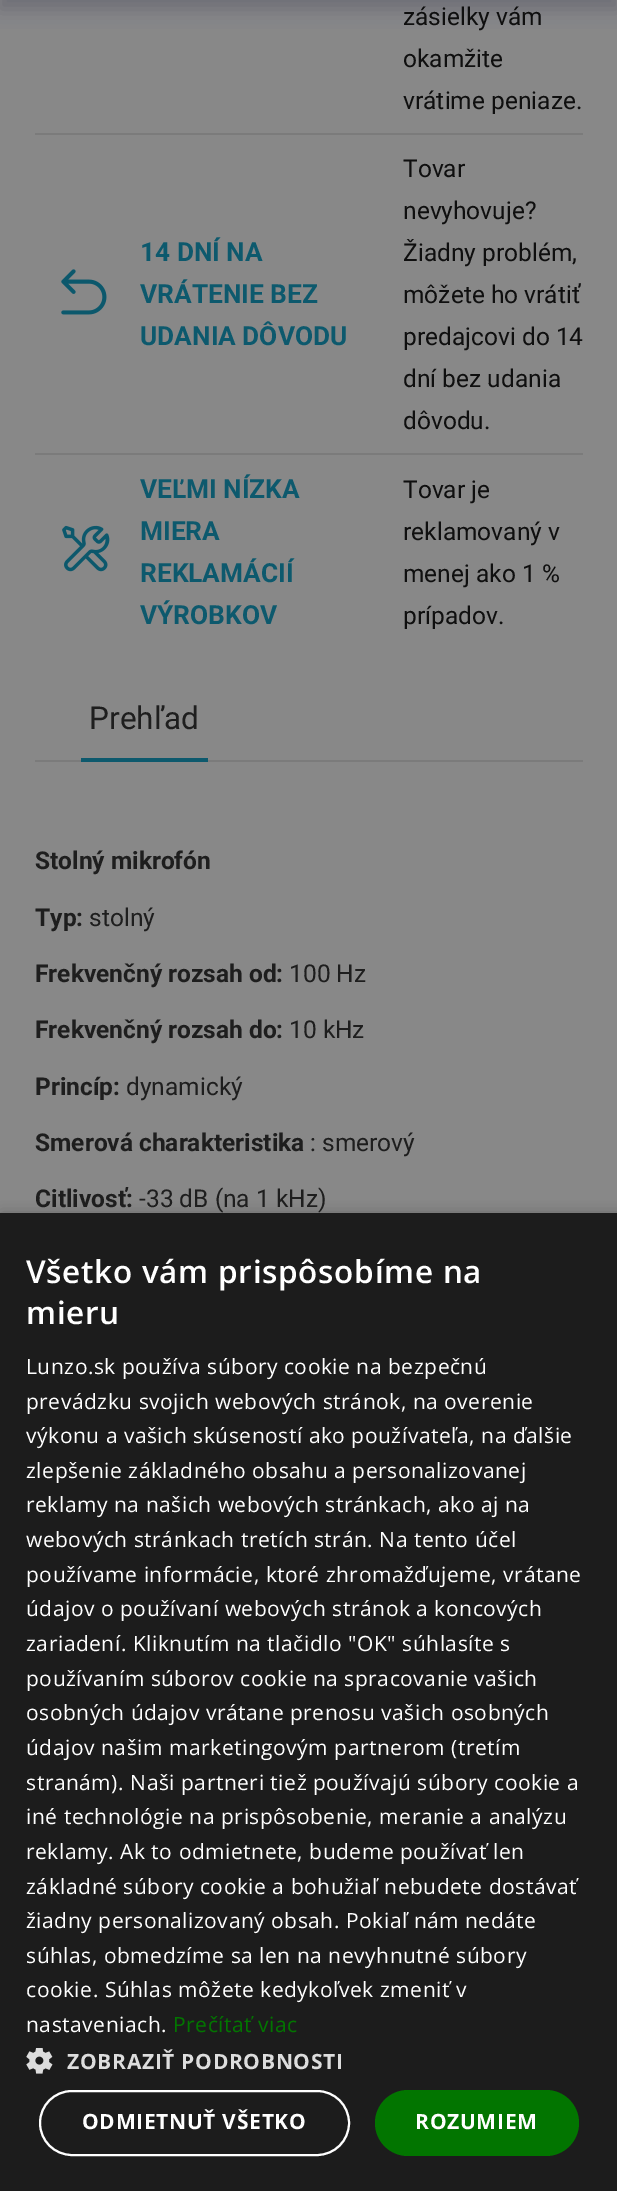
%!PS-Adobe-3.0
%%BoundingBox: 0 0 617 2191
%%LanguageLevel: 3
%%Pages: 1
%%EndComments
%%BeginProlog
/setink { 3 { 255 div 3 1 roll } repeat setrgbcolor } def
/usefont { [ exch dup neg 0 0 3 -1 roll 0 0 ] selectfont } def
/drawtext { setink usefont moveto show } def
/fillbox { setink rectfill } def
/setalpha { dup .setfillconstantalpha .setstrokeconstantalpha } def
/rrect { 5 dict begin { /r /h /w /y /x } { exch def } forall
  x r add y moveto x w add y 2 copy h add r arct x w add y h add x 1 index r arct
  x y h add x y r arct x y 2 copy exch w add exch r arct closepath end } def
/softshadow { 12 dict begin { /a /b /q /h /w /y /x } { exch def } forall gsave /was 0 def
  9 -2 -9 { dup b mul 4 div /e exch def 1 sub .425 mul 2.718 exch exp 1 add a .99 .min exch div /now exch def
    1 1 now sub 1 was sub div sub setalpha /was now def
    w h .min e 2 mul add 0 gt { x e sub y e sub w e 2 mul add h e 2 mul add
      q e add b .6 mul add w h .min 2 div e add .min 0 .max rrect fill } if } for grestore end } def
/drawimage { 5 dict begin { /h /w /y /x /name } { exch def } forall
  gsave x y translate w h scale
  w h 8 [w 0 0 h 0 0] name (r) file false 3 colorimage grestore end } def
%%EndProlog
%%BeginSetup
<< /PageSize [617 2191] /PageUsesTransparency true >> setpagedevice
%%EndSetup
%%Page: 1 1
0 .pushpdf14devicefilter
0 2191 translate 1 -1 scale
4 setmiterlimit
0 0 617 2191 136 136 136 fillbox
91 92 105 setink
0 -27 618 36 0 9 0.34 softshadow
0 -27 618 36 0 9 0.34 softshadow
(zásielky vám) 403 25 /Roboto-Regular 24.5 15 15 15 drawtext
(okamžite) 403 67 /Roboto-Regular 24.5 15 15 15 drawtext
(vrátime peniaze.) 403 109 /Roboto-Regular 24.5 15 15 15 drawtext
35 133 548 2 123 123 123 fillbox
(assets/img1.rgb) 61 269 46 46 drawimage
(14 DNÍ NA) 140 261 /Roboto-Bold 26.25 13 89 109 drawtext
(VRÁTENIE BEZ) 140 303 /Roboto-Bold 26.25 13 89 109 drawtext
(UDANIA DÔVODU) 140 345 /Roboto-Bold 26.25 13 89 109 drawtext
(Tovar) 403 177 /Roboto-Regular 24.5 15 15 15 drawtext
(nevyhovuje?) 403 219 /Roboto-Regular 24.5 15 15 15 drawtext
(Žiadny problém,) 403 261 /Roboto-Regular 24.5 15 15 15 drawtext
(môžete ho vrátiť) 403 303 /Roboto-Regular 24.5 15 15 15 drawtext
(predajcovi do 14) 403 345 /Roboto-Regular 24.5 15 15 15 drawtext
(dní bez udania) 403 387 /Roboto-Regular 24.5 15 15 15 drawtext
(dôvodu.) 403 429 /Roboto-Regular 24.5 15 15 15 drawtext
35 453 548 2 123 123 123 fillbox
(assets/img2.rgb) 62 525 48 47 drawimage
(VEĽMI NÍZKA) 140 498 /Roboto-Bold 26.25 13 89 109 drawtext
(MIERA) 140 540 /Roboto-Bold 26.25 13 89 109 drawtext
(REKLAMÁCIÍ) 140 582 /Roboto-Bold 26.25 13 89 109 drawtext
(VÝROBKOV) 140 624 /Roboto-Bold 26.25 13 89 109 drawtext
(Tovar je) 403 498 /Roboto-Regular 24.5 15 15 15 drawtext
(reklamovaný v) 403 540 /Roboto-Regular 24.5 15 15 15 drawtext
(menej ako 1 %) 403 582 /Roboto-Regular 24.5 15 15 15 drawtext
(prípadov.) 403 624 /Roboto-Regular 24.5 15 15 15 drawtext
35 760 548 2 123 123 123 fillbox
(Prehľad) 89 729 /Roboto-Regular 31.5 30 30 30 drawtext
81 758 127 4 13 89 109 fillbox
(Stolný mikrofón) 35 869 /Roboto-Bold 24.5 30 30 30 drawtext
(Typ:) 35 926 /Roboto-Bold 24.5 30 30 30 drawtext
(stolný) 89 926 /Roboto-Regular 24.5 30 30 30 drawtext
(Frekvenčný rozsah od:) 35 982 /Roboto-Bold 24.5 30 30 30 drawtext
(100 Hz) 289 982 /Roboto-Regular 24.5 30 30 30 drawtext
(Frekvenčný rozsah do:) 35 1038 /Roboto-Bold 24.5 30 30 30 drawtext
(10 kHz) 289 1038 /Roboto-Regular 24.5 30 30 30 drawtext
(Princíp:) 35 1095 /Roboto-Bold 24.5 30 30 30 drawtext
(dynamický) 126 1095 /Roboto-Regular 24.5 30 30 30 drawtext
(Smerová charakteristika) 35 1151 /Roboto-Bold 24.5 30 30 30 drawtext
(: smerový) 310 1151 /Roboto-Regular 24.5 30 30 30 drawtext
(Citlivosť:) 35 1207 /Roboto-Bold 24.5 30 30 30 drawtext
(-33 dB \(na 1 kHz\)) 139 1207 /Roboto-Regular 24.5 30 30 30 drawtext
0 0 0 setink
2 1216 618 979 0 7 0.35 softshadow
0 1213 617 978 28 28 28 fillbox
/OpenSans-SemiBold 31.5 usefont
255 255 255 setink
26 1283 moveto 0.7 0 (Všetko vám prispôsobíme na) ashow
26 1324 moveto 0.7 0 (mieru) ashow
/OpenSans-Regular 21 usefont
26 1374 moveto 0.53 0 (Lunzo.sk používa súbory cookie na bezpečnú) ashow
26 1409 moveto 0.53 0 (prevádzku svojich webových stránok, na overenie) ashow
26 1443 moveto 0.53 0 (výkonu a vašich skúseností ako používateľa, na ďalšie) ashow
26 1478 moveto 0.53 0 (zlepšenie základného obsahu a personalizovanej) ashow
26 1512 moveto 0.53 0 (reklamy na našich webových stránkach, ako aj na) ashow
26 1547 moveto 0.53 0 (webových stránkach tretích strán. Na tento účel) ashow
26 1582 moveto 0.53 0 (používame informácie, ktoré zhromažďujeme, vrátane) ashow
26 1616 moveto 0.53 0 (údajov o používaní webových stránok a koncových) ashow
26 1651 moveto 0.53 0 (zariadení. Kliknutím na tlačidlo "OK" súhlasíte s) ashow
26 1686 moveto 0.53 0 (používaním súborov cookie na spracovanie vašich) ashow
26 1720 moveto 0.53 0 (osobných údajov vrátane prenosu vašich osobných) ashow
26 1755 moveto 0.53 0 (údajov našim marketingovým partnerom \(tretím) ashow
26 1790 moveto 0.53 0 (stranám\). Naši partneri tiež používajú súbory cookie a) ashow
26 1824 moveto 0.53 0 (iné technológie na prispôsobenie, meranie a analýzu) ashow
26 1859 moveto 0.53 0 (reklamy. Ak to odmietnete, budeme používať len) ashow
26 1894 moveto 0.53 0 (základné súbory cookie a bohužiaľ nebudete dostávať) ashow
26 1928 moveto 0.53 0 (žiadny personalizovaný obsah. Pokiaľ nám nedáte) ashow
26 1963 moveto 0.53 0 (súhlas, obmedzíme sa len na nevyhnutné súbory) ashow
26 1997 moveto 0.53 0 (cookie. Súhlas môžete kedykoľvek zmeniť v) ashow
26 2032 moveto 0.53 0 (nastaveniach.) ashow
2 117 0 setink
173 2032 moveto 0.53 0 (Prečítať viac) ashow
(assets/img3.rgb) 26 2048 27 26 drawimage
/OpenSans-Bold 21 usefont
221 221 221 setink
67 2069 moveto 0.7 0 (ZOBRAZIŤ PODROBNOSTI) ashow
255 255 255 setink
2 setlinewidth
40 2091 309 64 32 rrect stroke
82 2129 moveto 0.7 0 (ODMIETNUŤ VŠETKO) ashow
2 117 0 setink
375 2090 204 66 33 rrect fill
255 255 255 setink
415 2129 moveto 0.7 0 (ROZUMIEM) ashow
.poppdf14devicefilter showpage
%%EOF
